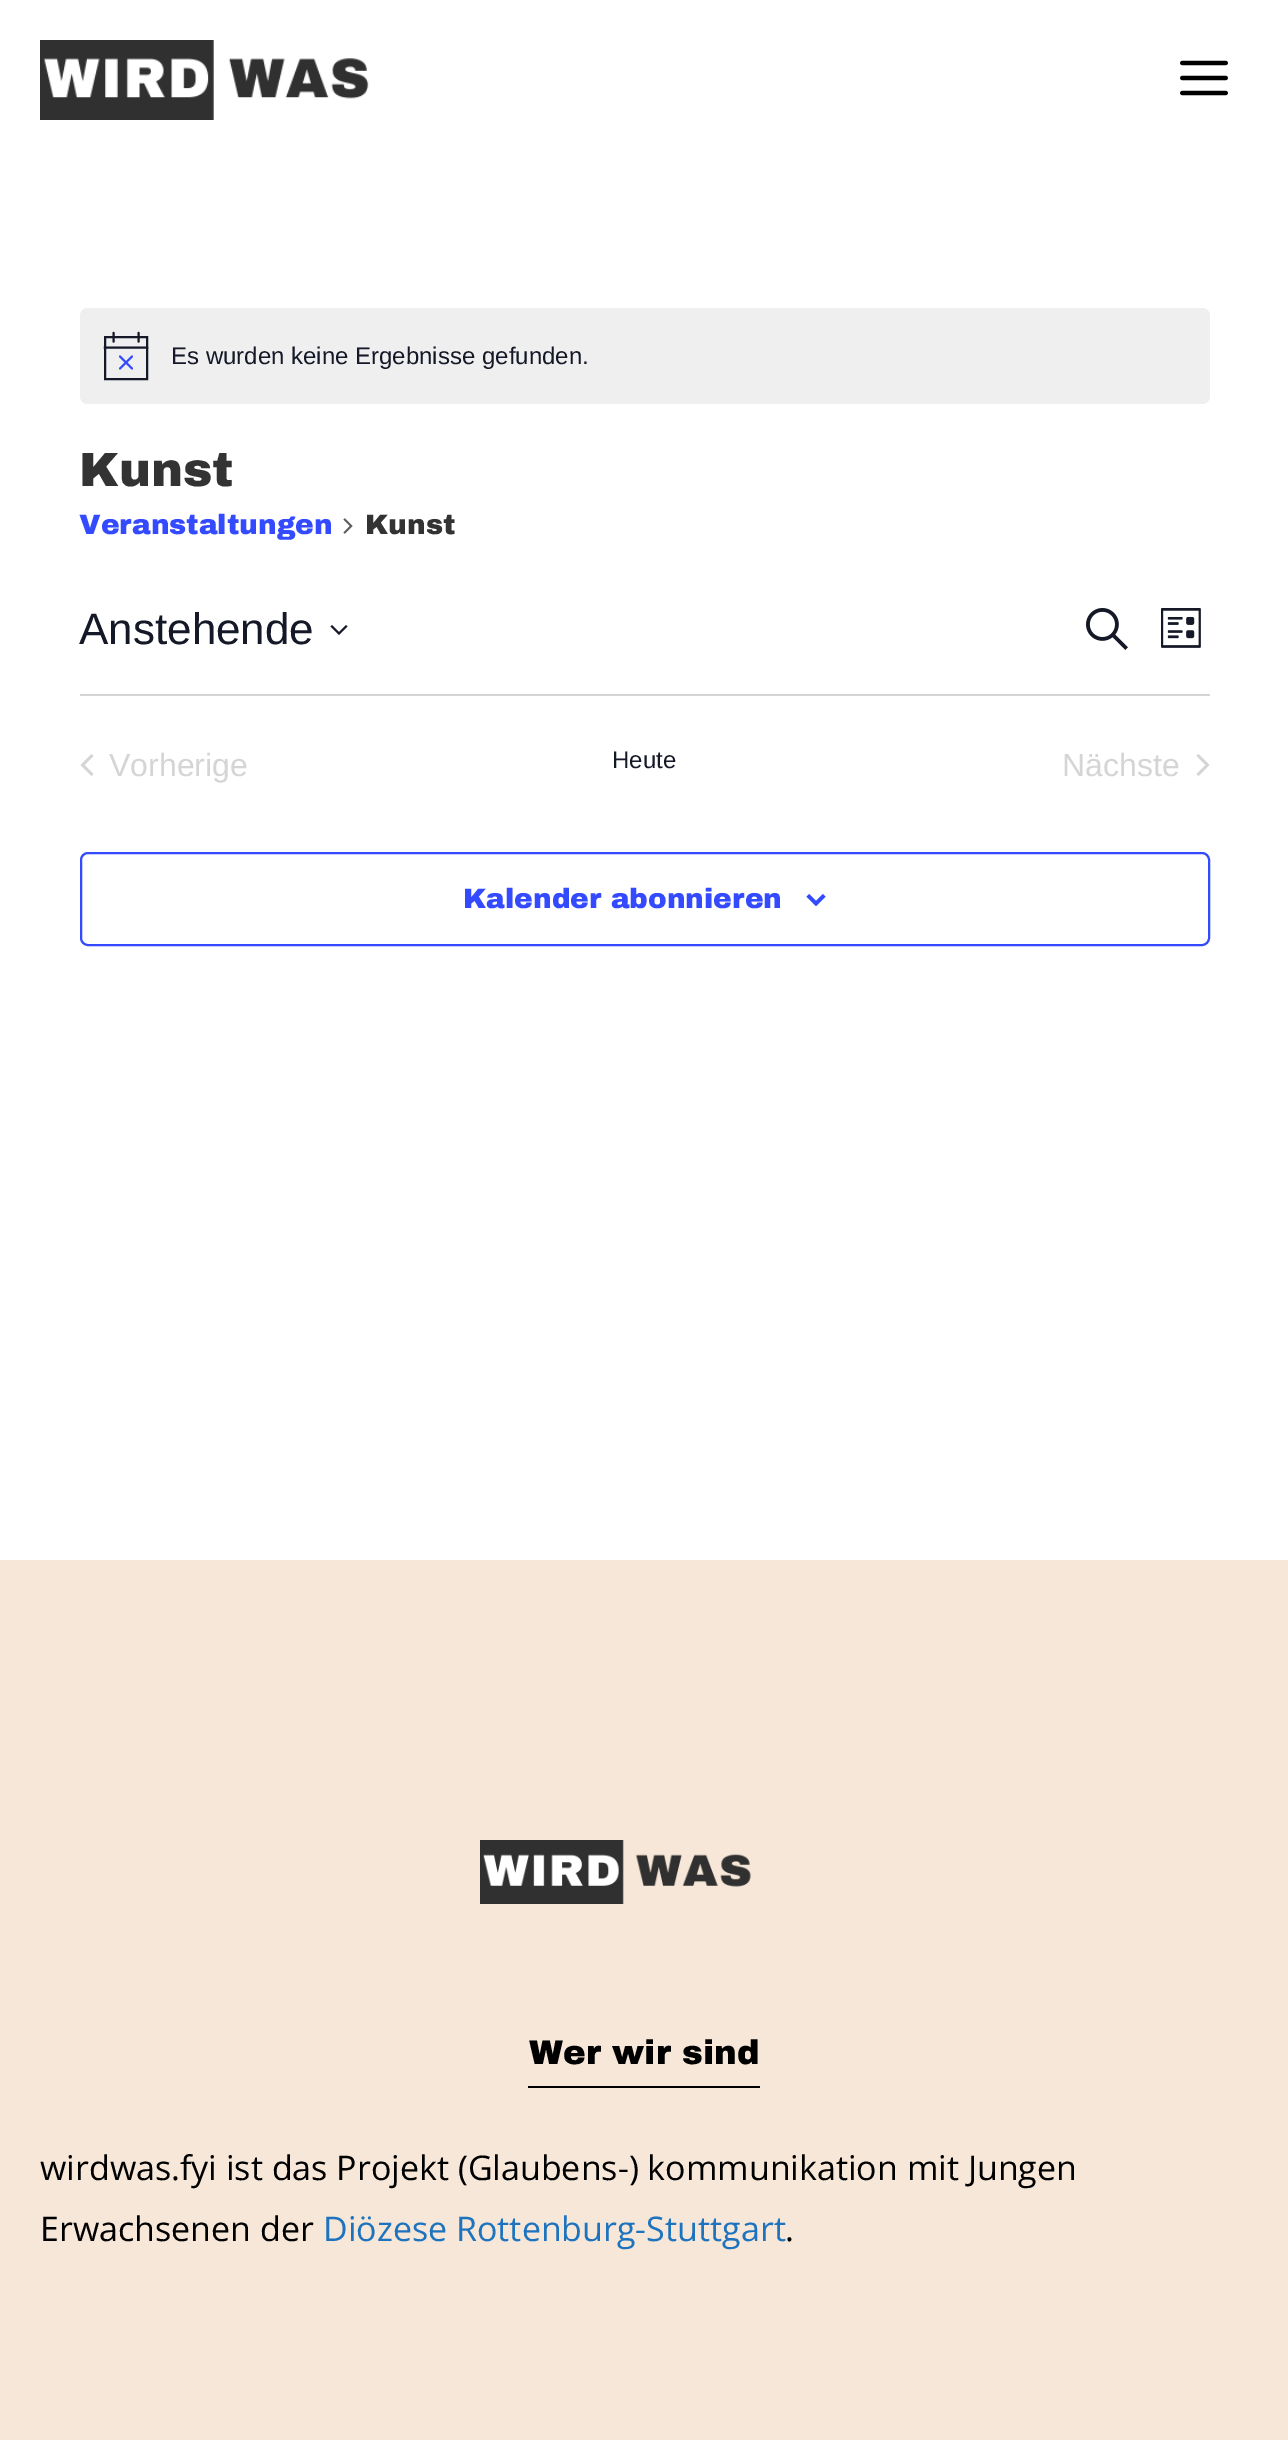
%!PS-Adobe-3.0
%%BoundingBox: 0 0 1288 2440
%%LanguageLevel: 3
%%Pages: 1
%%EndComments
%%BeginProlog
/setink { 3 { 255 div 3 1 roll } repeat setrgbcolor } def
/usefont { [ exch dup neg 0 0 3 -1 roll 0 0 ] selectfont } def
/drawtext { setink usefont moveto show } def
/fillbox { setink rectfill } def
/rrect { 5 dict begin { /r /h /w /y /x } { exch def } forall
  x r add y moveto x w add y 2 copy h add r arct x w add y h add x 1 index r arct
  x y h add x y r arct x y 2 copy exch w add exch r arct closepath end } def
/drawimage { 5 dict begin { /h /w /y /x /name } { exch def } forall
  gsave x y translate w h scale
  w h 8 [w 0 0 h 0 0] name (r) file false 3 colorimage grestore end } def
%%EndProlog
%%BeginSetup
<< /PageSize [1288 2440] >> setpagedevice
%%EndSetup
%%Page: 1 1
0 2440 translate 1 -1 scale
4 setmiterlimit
0 0 1288 2440 255 255 255 fillbox
(assets/img1.rgb) 40 40 329 80 drawimage
(assets/img2.rgb) 1180 60 48 36 drawimage
239 239 240 setink
80 308 1130 96 8 rrect fill
20 24 39 setink
2.1 setlinewidth
105 337 moveto 147 337 lineto 147 379 lineto 105 379 lineto closepath stroke
51 74 255 setink
1 setlinecap
120 356.5 moveto 132 368.5 lineto 132 356.5 moveto 120 368.5 lineto stroke
20 24 39 setink
113.5 333 moveto 113.5 341.5 lineto 138.5 333 moveto 138.5 341.5 lineto stroke
2 setlinecap
105 347.5 moveto 147 347.5 lineto stroke
(Es wurden keine Ergebnisse gefunden.) 171 364 /LiberationSans-Regular 24 20 24 39 drawtext
(Kunst) 79 486 /ArchivoBlack-Black 48 51 51 51 drawtext
(Veranstaltungen) 79 534 /ArchivoBlack-Black 28 51 74 255 drawtext
(assets/img3.rgb) 343 518 10 16 drawimage
(Kunst) 365 534 /ArchivoBlack-Black 28 51 51 51 drawtext
(Anstehende) 79 644 /LiberationSans-Regular 44 20 24 39 drawtext
332 625 moveto 339 632 lineto 346 625 lineto 347.5 626.5 lineto 339 635 lineto 330.5 626.5 lineto closepath eofill
(assets/img4.rgb) 1086 608 42 42 drawimage
(assets/img5.rgb) 1161 608 40 40 drawimage
80 694 1130 2 213 213 213 fillbox
93.5 774 moveto 91.5 776 lineto 80.5 765 lineto 91.5 754 lineto 93.5 756 lineto 84.5 765 lineto closepath fill
(Vorherige) 109 776 /LiberationSans-Regular 32 213 213 213 drawtext
(Heute) 612 768 /LiberationSans-Regular 24 20 24 39 drawtext
(Nächste) 1062 776 /LiberationSans-Regular 32 213 213 213 drawtext
1196.5 756 moveto 1198.5 754 lineto 1209.5 765 lineto 1198.5 776 lineto 1196.5 774 lineto 1205.5 765 lineto closepath fill
51 74 255 setink
2 setlinewidth
0 setlinecap
81 853 1128 92 7 rrect stroke
(Kalender abonnieren) 463 908 /ArchivoBlack-Black 28 51 74 255 drawtext
(assets/img6.rgb) 806 894 20 12 drawimage
0 1560 1288 880 246 231 216 fillbox
(assets/img7.rgb) 480 1840 271 64 drawimage
528 2086 232 2 0 0 0 fillbox
(Wer wir sind) 529 2064 /ArchivoBlack-Black 34 0 0 0 drawtext
(wirdwas.fyi ist das Projekt \(Glaubens-\) kommunikation mit Jungen) 40 2180 /OpenSans-Regular 34 0 0 0 drawtext
(Erwachsenen der) 40 2241 /OpenSans-Regular 34 0 0 0 drawtext
(Diözese Rottenburg-Stuttgart) 323 2241 /OpenSans-Regular 34 30 115 190 drawtext
(.) 785 2241 /OpenSans-Regular 34 0 0 0 drawtext
showpage
%%EOF
